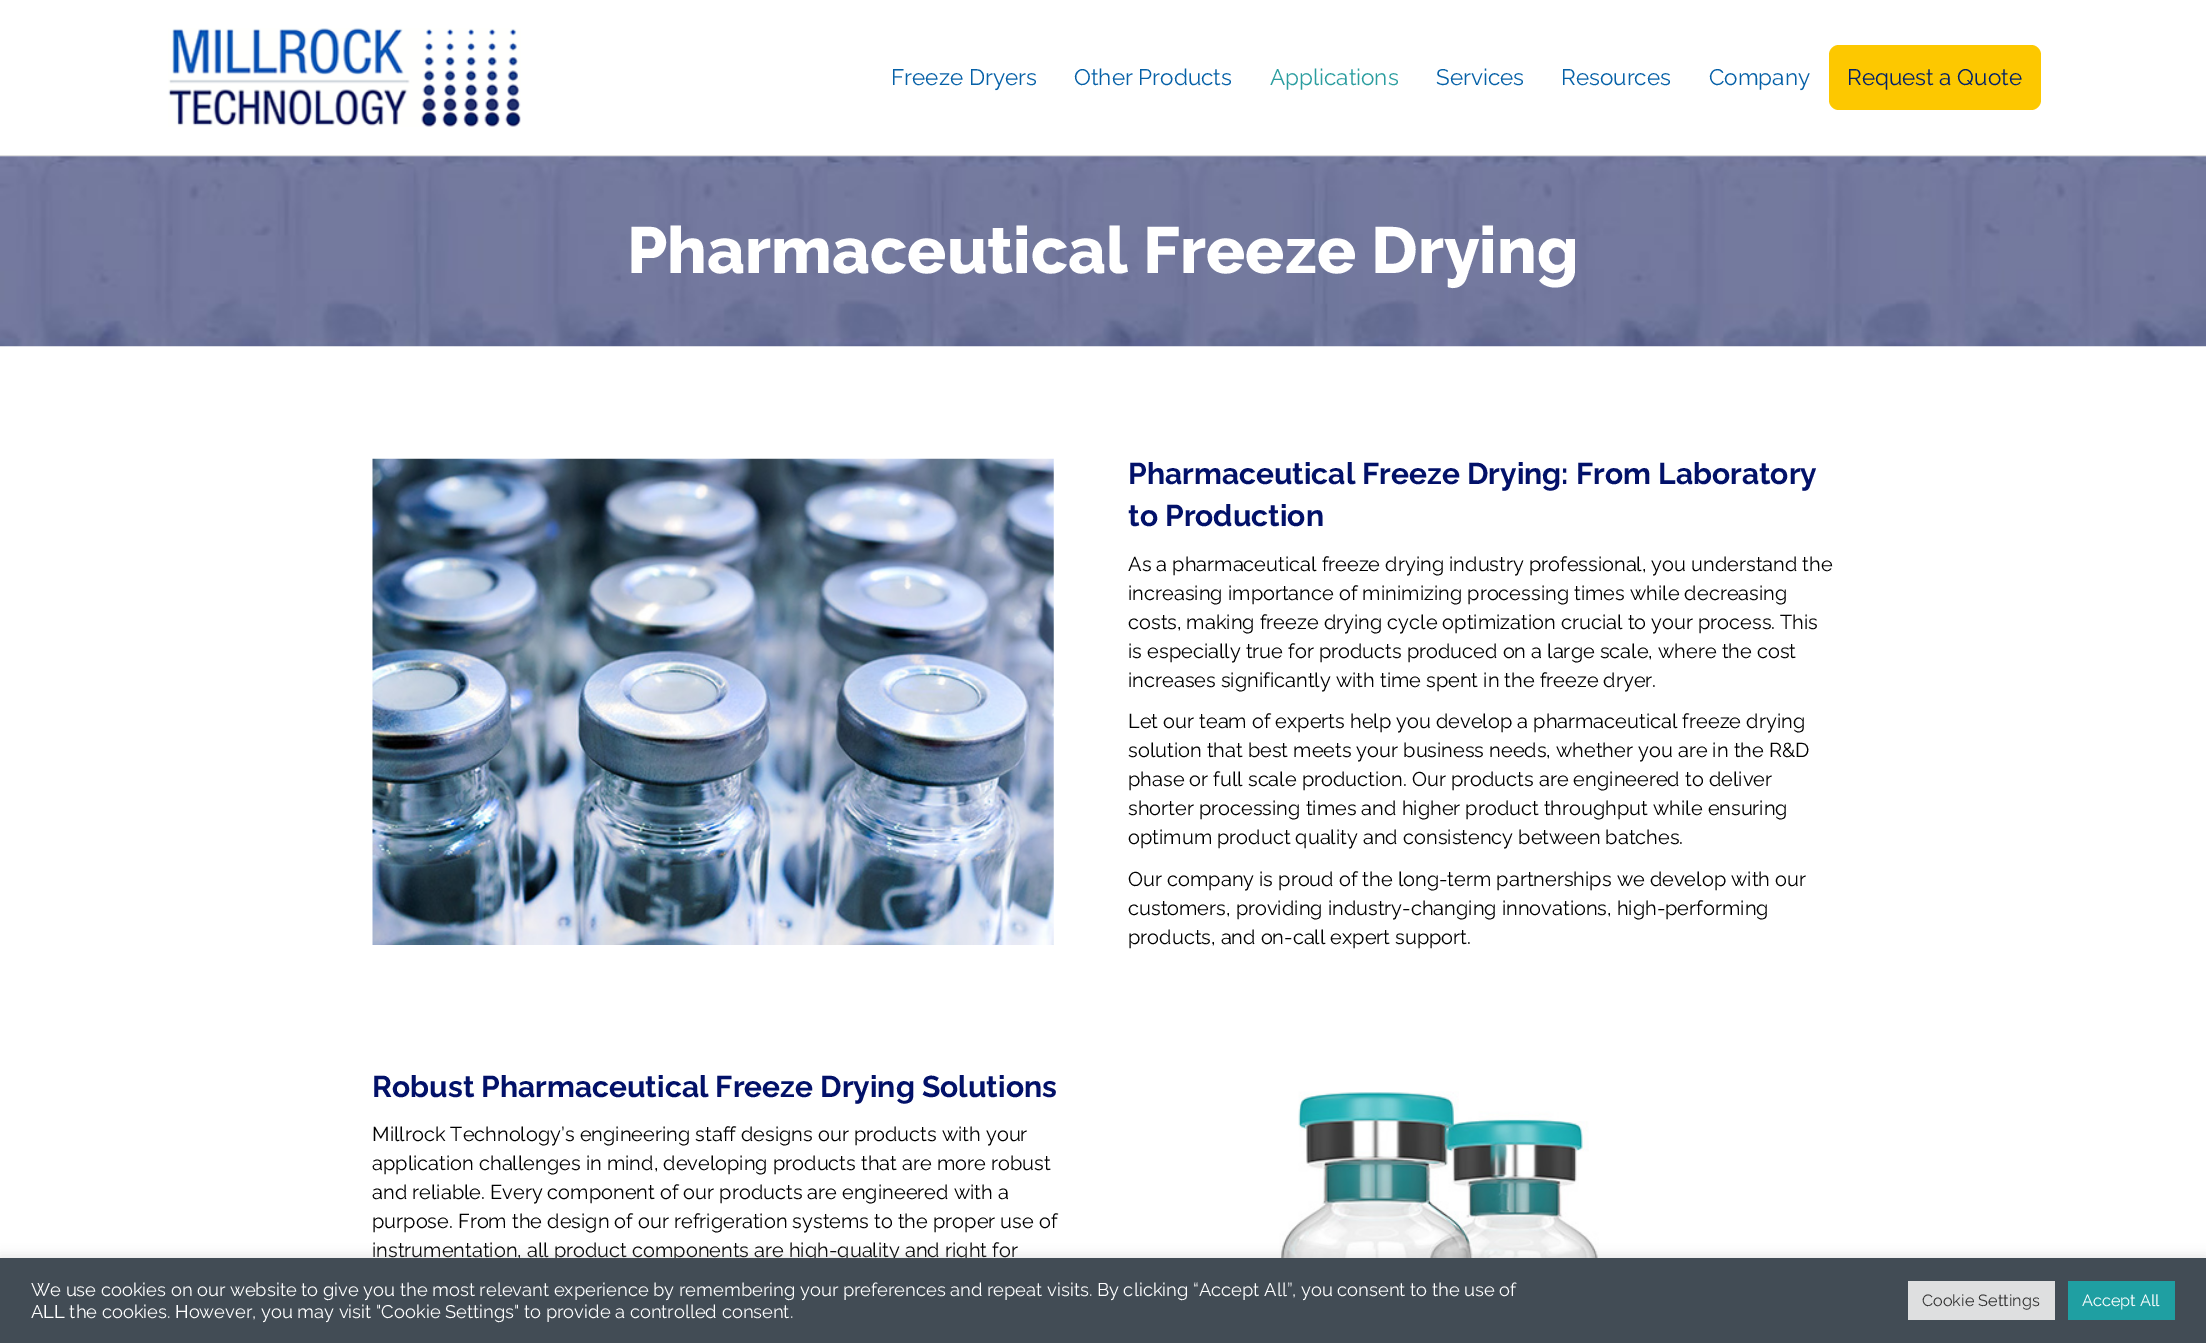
%!PS-Adobe-3.0
%%BoundingBox: 0 0 2206 1343
%%LanguageLevel: 3
%%Pages: 1
%%EndComments
%%BeginProlog
/setink { 3 { 255 div 3 1 roll } repeat setrgbcolor } def
/usefont { [ exch dup neg 0 0 3 -1 roll 0 0 ] selectfont } def
/drawtext { setink usefont moveto show } def
/fillbox { setink rectfill } def
/setalpha { dup .setfillconstantalpha .setstrokeconstantalpha } def
/rrect { 5 dict begin { /r /h /w /y /x } { exch def } forall
  x r add y moveto x w add y 2 copy h add r arct x w add y h add x 1 index r arct
  x y h add x y r arct x y 2 copy exch w add exch r arct closepath end } def
/softshadow { 12 dict begin { /a /b /q /h /w /y /x } { exch def } forall gsave /was 0 def
  9 -2 -9 { dup b mul 4 div /e exch def 1 sub .425 mul 2.718 exch exp 1 add a .99 .min exch div /now exch def
    1 1 now sub 1 was sub div sub setalpha /was now def
    w h .min e 2 mul add 0 gt { x e sub y e sub w e 2 mul add h e 2 mul add
      q e add b .6 mul add w h .min 2 div e add .min 0 .max rrect fill } if } for grestore end } def
/drawimage { 5 dict begin { /h /w /y /x /name } { exch def } forall
  gsave x y translate w h scale
  w h 8 [w 0 0 h 0 0] name (r) file false 3 colorimage grestore end } def
%%EndProlog
%%BeginSetup
<< /PageSize [2206 1343] /PageUsesTransparency true >> setpagedevice
%%EndSetup
%%Page: 1 1
0 .pushpdf14devicefilter
0 1343 translate 1 -1 scale
4 setmiterlimit
0 0 2206 1343 255 255 255 fillbox
0 155 2206 1 222 222 222 fillbox
(assets/img1.rgb) 168 28 353 99 drawimage
(Freeze Dryers) 891 85 /Raleway-Regular 22.5 5 96 167 drawtext
(Other Products) 1074 85 /Raleway-Regular 22.5 5 96 167 drawtext
(Applications) 1270 85 /Raleway-Regular 22.5 42 157 159 drawtext
(Services) 1436 85 /Raleway-Regular 22.5 5 96 167 drawtext
(Resources) 1561 85 /Raleway-Regular 22.5 5 96 167 drawtext
(Company) 1709 85 /Raleway-Regular 22.5 5 96 167 drawtext
253 200 0 setink
1829 45 212 65 10 rrect fill
(Request a Quote) 1847 85 /Raleway-Regular 22.5 1 33 105 drawtext
(assets/img2.rgb) 0 156 2206 191 drawimage
(Pharmaceutical Freeze Drying) 627 273 /Raleway-ExtraBold 65 255 255 255 drawtext
(assets/img3.rgb) 372 458 682 487 drawimage
(Pharmaceutical Freeze Drying: From Laboratory) 1128 484 /Raleway-Bold 30 2 17 105 drawtext
(to Production) 1128 526 /Raleway-Bold 30 2 17 105 drawtext
(As a pharmaceutical freeze drying industry professional, you understand the) 1128 571 /Raleway-Regular 20 0 0 0 drawtext
(increasing importance of minimizing processing times while decreasing) 1128 600 /Raleway-Regular 20 0 0 0 drawtext
(costs, making freeze drying cycle optimization crucial to your process. This) 1128 629 /Raleway-Regular 20 0 0 0 drawtext
(is especially true for products produced on a large scale, where the cost) 1128 658 /Raleway-Regular 20 0 0 0 drawtext
(increases significantly with time spent in the freeze dryer.) 1128 687 /Raleway-Regular 20 0 0 0 drawtext
(Let our team of experts help you develop a pharmaceutical freeze drying) 1128 728 /Raleway-Regular 20 0 0 0 drawtext
(solution that best meets your business needs, whether you are in the R&D) 1128 757 /Raleway-Regular 20 0 0 0 drawtext
(phase or full scale production. Our products are engineered to deliver) 1128 786 /Raleway-Regular 20 0 0 0 drawtext
(shorter processing times and higher product throughput while ensuring) 1128 815 /Raleway-Regular 20 0 0 0 drawtext
(optimum product quality and consistency between batches.) 1128 844 /Raleway-Regular 20 0 0 0 drawtext
(Our company is proud of the long-term partnerships we develop with our) 1128 886 /Raleway-Regular 20 0 0 0 drawtext
(customers, providing industry-changing innovations, high-performing) 1128 915 /Raleway-Regular 20 0 0 0 drawtext
(products, and on-call expert support.) 1128 944 /Raleway-Regular 20 0 0 0 drawtext
(Robust Pharmaceutical Freeze Drying Solutions) 372 1097 /Raleway-Bold 30 2 17 105 drawtext
(Millrock Technology’s engineering staff designs our products with your) 372 1141 /Raleway-Regular 20 0 0 0 drawtext
(application challenges in mind, developing products that are more robust) 372 1170 /Raleway-Regular 20 0 0 0 drawtext
(and reliable. Every component of our products are engineered with a) 372 1199 /Raleway-Regular 20 0 0 0 drawtext
(purpose. From the design of our refrigeration systems to the proper use of) 372 1228 /Raleway-Regular 20 0 0 0 drawtext
(instrumentation, all product components are high-quality and right for) 372 1257 /Raleway-Regular 20 0 0 0 drawtext
(assets/img4.rgb) 1279 1091 325 167 drawimage
172 171 171 setink
0 1256 2206 87 0 6 0.3 softshadow
0 1258 2206 85 66 76 85 fillbox
(We use cookies on our website to give you the most relevant experience by remembering your preferences and repeat visits. By clicking “Accept All”, you consent to the use of) 31 1296 /Raleway-Regular 18.33 255 255 255 drawtext
(ALL the cookies. However, you may visit "Cookie Settings" to provide a controlled consent.) 31 1318 /Raleway-Regular 18.33 255 255 255 drawtext
1908 1281 147 39 222 223 224 fillbox
(Cookie Settings) 1922 1306 /Raleway-Regular 16.25 51 51 51 drawtext
2068 1281 107 39 31 159 162 fillbox
(Accept All) 2082 1306 /Raleway-Regular 16.25 255 255 255 drawtext
.poppdf14devicefilter showpage
%%EOF
